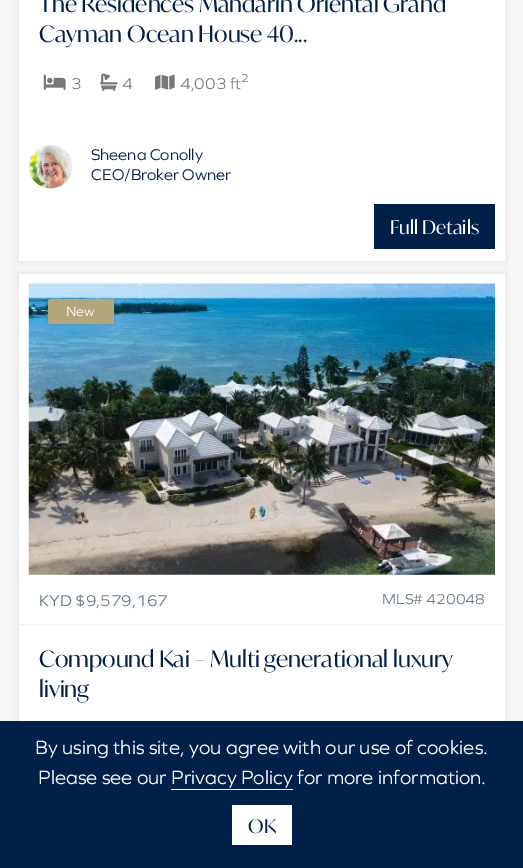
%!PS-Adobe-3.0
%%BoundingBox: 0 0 523 868
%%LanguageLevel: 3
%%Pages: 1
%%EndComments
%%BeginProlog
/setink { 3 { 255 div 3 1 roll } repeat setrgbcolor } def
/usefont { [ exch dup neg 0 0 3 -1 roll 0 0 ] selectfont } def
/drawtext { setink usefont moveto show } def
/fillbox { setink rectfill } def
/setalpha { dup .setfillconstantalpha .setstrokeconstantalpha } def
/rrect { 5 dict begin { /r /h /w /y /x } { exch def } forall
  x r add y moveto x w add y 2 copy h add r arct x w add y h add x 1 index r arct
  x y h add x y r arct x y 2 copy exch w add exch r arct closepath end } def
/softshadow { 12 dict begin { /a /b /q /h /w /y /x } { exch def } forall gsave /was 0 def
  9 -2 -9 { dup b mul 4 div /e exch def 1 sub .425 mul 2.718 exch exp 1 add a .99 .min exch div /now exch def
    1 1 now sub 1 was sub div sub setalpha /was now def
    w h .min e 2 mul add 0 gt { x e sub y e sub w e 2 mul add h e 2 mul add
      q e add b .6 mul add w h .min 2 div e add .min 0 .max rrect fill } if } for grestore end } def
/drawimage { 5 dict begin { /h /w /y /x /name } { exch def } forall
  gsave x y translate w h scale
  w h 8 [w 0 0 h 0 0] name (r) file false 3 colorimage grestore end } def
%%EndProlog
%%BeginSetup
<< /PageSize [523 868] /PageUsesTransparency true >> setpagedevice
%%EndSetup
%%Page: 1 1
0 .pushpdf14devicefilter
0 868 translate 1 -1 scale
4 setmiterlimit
0 0 523 868 247 247 247 fillbox
0 0 0 setink
16 -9 492 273 0 3 0.05 softshadow
19 0 486 261 255 255 255 fillbox
(The Residences Mandarin Oriental Grand) 39 12 /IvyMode-Regular 22.5 0 32 74 drawtext
(Cayman Ocean House 40...) 39 42 /IvyMode-Regular 22.5 0 32 74 drawtext
(assets/img1.rgb) 43 74 23 16 drawimage
(3) 71 89 /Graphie-Regular 16.25 120 120 120 drawtext
(assets/img2.rgb) 100 73 18 18 drawimage
(4) 122 89 /Graphie-Regular 16.25 120 120 120 drawtext
(assets/img3.rgb) 155 74 20 16 drawimage
(4,003 ft) 180 89 /Graphie-Regular 16.25 120 120 120 drawtext
(2) 241 82 /Graphie-Regular 12 120 120 120 drawtext
(assets/img4.rgb) 28 144 45 45 drawimage
(Sheena Conolly) 91 160 /Graphie-Regular 16.25 0 32 74 drawtext
(CEO/Broker Owner) 91 180 /Graphie-Regular 16.25 0 32 74 drawtext
374 204 121 45 0 32 74 fillbox
(Full Details) 390 234 /IvyMode-Regular 18.75 255 255 255 drawtext
0 0 0 setink
16 271 492 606 0 3 0.05 softshadow
19 274 486 447 255 255 255 fillbox
(assets/img5.rgb) 28 283 467 292 drawimage
0 0 0 setink
48 299 66 25 2.5 3 0.1 softshadow
180 166 124 setink
48 299 66 25 2.5 rrect fill
(New) 66 316 /Graphie-Regular 14 255 255 255 drawtext
19 624 486 1 238 243 246 fillbox
(KYD $9,579,167) 39 606 /Graphie-Regular 16.25 103 120 134 drawtext
(MLS# 420048) 382 604 /Graphie-Regular 15 103 120 134 drawtext
(Compound Kai – Multi generational luxury) 39 667 /IvyMode-Regular 22.5 0 32 74 drawtext
(living) 39 697 /IvyMode-Regular 22.5 0 32 74 drawtext
0 721 523 147 0 32 74 fillbox
(By using this site, you agree with our use of cookies.) 35 754 /Graphie-Regular 20 255 255 255 drawtext
(Please see our Privacy Policy for more information.) 38 784 /Graphie-Regular 20 255 255 255 drawtext
171 789 122 1 255 255 255 fillbox
232 805 60 40 255 255 255 fillbox
(OK) 248 833 /IvyMode-Regular 18.75 0 32 74 drawtext
.poppdf14devicefilter showpage
%%EOF
